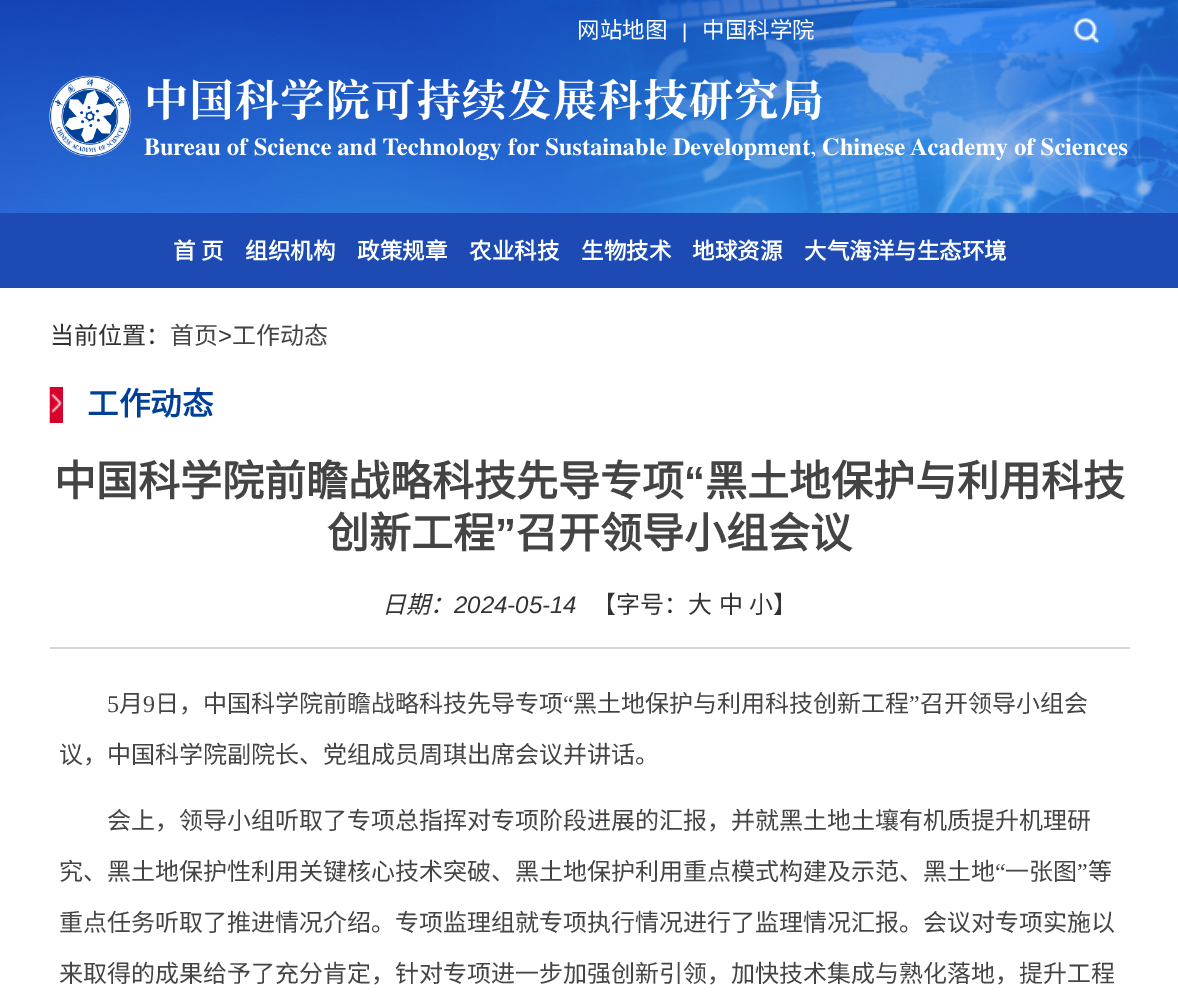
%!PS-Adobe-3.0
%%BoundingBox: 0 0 1178 1007
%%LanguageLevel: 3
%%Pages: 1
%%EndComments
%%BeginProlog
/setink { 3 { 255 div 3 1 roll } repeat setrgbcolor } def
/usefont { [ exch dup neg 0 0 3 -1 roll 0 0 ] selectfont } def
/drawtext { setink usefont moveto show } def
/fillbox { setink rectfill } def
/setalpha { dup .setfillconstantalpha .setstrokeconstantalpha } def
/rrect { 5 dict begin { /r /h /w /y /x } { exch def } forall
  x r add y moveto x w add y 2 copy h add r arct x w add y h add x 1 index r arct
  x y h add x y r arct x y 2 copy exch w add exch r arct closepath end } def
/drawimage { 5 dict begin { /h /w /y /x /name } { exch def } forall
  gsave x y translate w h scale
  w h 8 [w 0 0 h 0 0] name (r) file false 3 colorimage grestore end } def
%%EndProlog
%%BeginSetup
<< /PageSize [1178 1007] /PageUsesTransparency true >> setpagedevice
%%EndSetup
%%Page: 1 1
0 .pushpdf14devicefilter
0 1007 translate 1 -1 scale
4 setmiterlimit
0 0 1178 1007 255 255 255 fillbox
(assets/img1.rgb) 0 0 1178 213 drawimage
(网站地图) 577 38 /NotoSansCJKSC-Regular 22.5 254 255 255 drawtext
(|) 682 38 /LiberationSans-Regular 20 254 255 255 drawtext
(中国科学院) 702 38 /NotoSansCJKSC-Regular 22.5 254 255 255 drawtext
0.48 setalpha
40 136 255 setink
852 8 263 45 22.5 rrect fill
1 setalpha
(assets/img2.rgb) 1074 18 26 26 drawimage
(assets/img3.rgb) 49 75 1079 86 drawimage
0 213 1178 75 29 74 179 fillbox
(首) 173 259 /NotoSansCJKSC-Bold 22.5 254 255 255 drawtext
(页) 201 259 /NotoSansCJKSC-Bold 22.5 254 255 255 drawtext
(组织机构) 245 259 /NotoSansCJKSC-Bold 22.5 254 255 255 drawtext
(政策规章) 357 259 /NotoSansCJKSC-Bold 22.5 254 255 255 drawtext
(农业科技) 469 259 /NotoSansCJKSC-Bold 22.5 254 255 255 drawtext
(生物技术) 581 259 /NotoSansCJKSC-Bold 22.5 254 255 255 drawtext
(地球资源) 692 259 /NotoSansCJKSC-Bold 22.5 254 255 255 drawtext
(大气海洋与生态环境) 804 259 /NotoSansCJKSC-Bold 22.5 254 255 255 drawtext
(当前位置：) 50 344 /NotoSansCJKSC-Regular 24 51 51 51 drawtext
(首页) 170 344 /NotoSansCJKSC-Regular 24 68 68 68 drawtext
(>) 218 344 /LiberationSans-Regular 24 51 51 51 drawtext
(工作动态) 232 344 /NotoSansCJKSC-Regular 24 68 68 68 drawtext
(assets/img4.rgb) 49 387 14 36 drawimage
(工作动态) 87 415 /NotoSansCJKSC-Bold 31.5 0 64 152 drawtext
(中国科学院前瞻战略科技先导专项) 54 496 /NotoSansCJKSC-Bold 42 68 68 68 drawtext
(“) 684 496 /LiberationSans-Bold 42 68 68 68 drawtext
(黑土地保护与利用科技) 705 496 /NotoSansCJKSC-Bold 42 68 68 68 drawtext
(创新工程) 327 548 /NotoSansCJKSC-Bold 42 68 68 68 drawtext
(”) 495 548 /LiberationSans-Bold 42 68 68 68 drawtext
(召开领导小组会议) 516 548 /NotoSansCJKSC-Bold 42 68 68 68 drawtext
50 647 1080 2 213 213 213 fillbox
(日期：) 382 613 /NotoSansCJKSC-Italic 24 51 51 51 drawtext
(2024-05-14) 454 613 /LiberationSans-Italic 24 51 51 51 drawtext
(【字号：大) 592 613 /NotoSansCJKSC-Regular 24 51 51 51 drawtext
(中) 719 613 /NotoSansCJKSC-Regular 24 51 51 51 drawtext
(小】) 749 613 /NotoSansCJKSC-Regular 24 51 51 51 drawtext
(5) 107 712 /LiberationSerif-Regular 24 68 68 68 drawtext
(月) 119 712 /NotoSansCJKSC-Regular 24 68 68 68 drawtext
(9) 143 712 /LiberationSerif-Regular 24 68 68 68 drawtext
(日，中国科学院前瞻战略科技先导专项) 155 712 /NotoSansCJKSC-Regular 24 68 68 68 drawtext
(“) 563 712 /LiberationSerif-Regular 24 68 68 68 drawtext
(黑土地保护与利用科技创新工程) 573 712 /NotoSansCJKSC-Regular 24 68 68 68 drawtext
(”) 909 712 /LiberationSerif-Regular 24 68 68 68 drawtext
(召开领导小组会) 920 712 /NotoSansCJKSC-Regular 24 68 68 68 drawtext
(议，中国科学院副院长、党组成员周琪出席会议并讲话。) 59 763 /NotoSansCJKSC-Regular 24 68 68 68 drawtext
(会上，领导小组听取了专项总指挥对专项阶段进展的汇报，并就黑土地土壤有机质提升机理研) 107 829 /NotoSansCJKSC-Regular 24 68 68 68 drawtext
(究、黑土地保护性利用关键核心技术突破、黑土地保护利用重点模式构建及示范、黑土地) 59 880 /NotoSansCJKSC-Regular 24 68 68 68 drawtext
(“) 995 880 /LiberationSerif-Regular 24 68 68 68 drawtext
(一张图) 1005 880 /NotoSansCJKSC-Regular 24 68 68 68 drawtext
(”) 1077 880 /LiberationSerif-Regular 24 68 68 68 drawtext
(等) 1088 880 /NotoSansCJKSC-Regular 24 68 68 68 drawtext
(重点任务听取了推进情况介绍。专项监理组就专项执行情况进行了监理情况汇报。会议对专项实施以) 59 931 /NotoSansCJKSC-Regular 24 68 68 68 drawtext
(来取得的成果给予了充分肯定，针对专项进一步加强创新引领，加快技术集成与熟化落地，提升工程) 59 982 /NotoSansCJKSC-Regular 24 68 68 68 drawtext
.poppdf14devicefilter showpage
%%EOF
